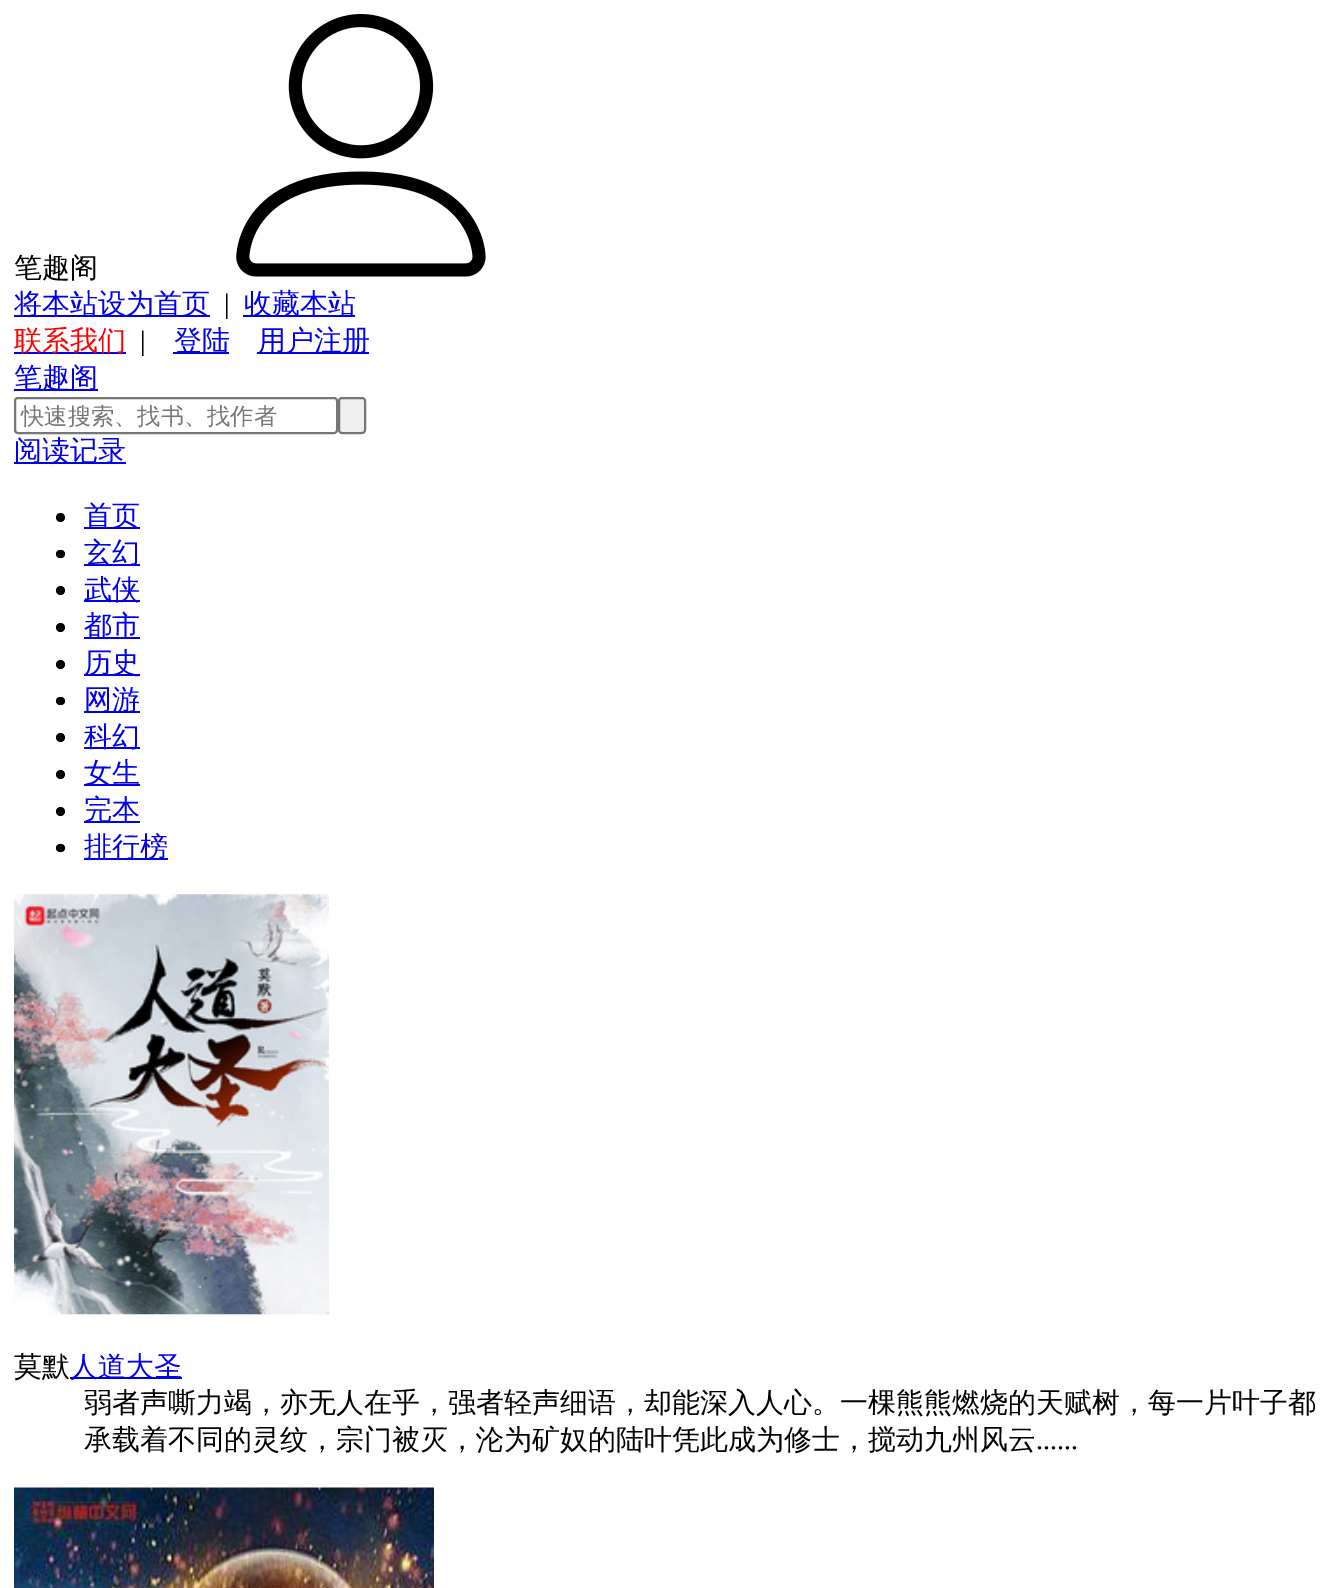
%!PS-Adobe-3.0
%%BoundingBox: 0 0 1332 1588
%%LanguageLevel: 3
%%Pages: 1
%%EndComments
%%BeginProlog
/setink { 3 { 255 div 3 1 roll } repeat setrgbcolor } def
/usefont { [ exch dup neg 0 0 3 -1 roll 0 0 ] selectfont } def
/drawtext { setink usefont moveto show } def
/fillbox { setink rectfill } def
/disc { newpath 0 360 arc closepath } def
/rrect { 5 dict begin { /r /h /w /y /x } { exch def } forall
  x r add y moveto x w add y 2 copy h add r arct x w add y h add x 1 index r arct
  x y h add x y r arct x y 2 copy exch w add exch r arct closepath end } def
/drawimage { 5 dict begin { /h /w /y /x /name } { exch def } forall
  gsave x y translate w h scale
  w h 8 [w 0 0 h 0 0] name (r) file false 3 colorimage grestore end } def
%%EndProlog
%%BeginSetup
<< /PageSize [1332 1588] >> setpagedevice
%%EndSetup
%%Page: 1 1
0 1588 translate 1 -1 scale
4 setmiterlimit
0 0 1332 1588 255 255 255 fillbox
(笔趣阁) 14 277 /WenQuanYiZenHei-Medium 28 0 0 0 drawtext
(assets/img1.rgb) 236 14 250 263 drawimage
14 315 196 2 0 0 238 fillbox
(将本站设为首页) 14 313 /WenQuanYiZenHei-Medium 28 0 0 238 drawtext
(|) 224 313 /LiberationSerif-Regular 28 0 0 0 drawtext
243 315 112 2 0 0 238 fillbox
(收藏本站) 244 313 /WenQuanYiZenHei-Medium 28 0 0 238 drawtext
14 352 112 2 0 0 238 fillbox
(联系我们) 14 350 /WenQuanYiZenHei-Medium 28 255 0 0 drawtext
(|) 140 350 /LiberationSerif-Regular 28 0 0 0 drawtext
173 352 56 2 0 0 238 fillbox
(登陆) 174 350 /WenQuanYiZenHei-Medium 28 0 0 238 drawtext
257 352 112 2 0 0 238 fillbox
(用户注册) 258 350 /WenQuanYiZenHei-Medium 28 0 0 238 drawtext
14 389 84 2 0 0 238 fillbox
(笔趣阁) 14 387 /WenQuanYiZenHei-Medium 28 0 0 238 drawtext
118 118 118 setink
2 setlinewidth
15 398 322 35 3 rrect stroke
(快速搜索、找书、找作者) 21 424 /WenQuanYiZenHei-Medium 23.25 117 117 117 drawtext
239 239 239 setink
339 398 26 35 3 rrect gsave fill grestore
118 118 118 setink
stroke
14 462 112 2 0 0 238 fillbox
(阅读记录) 14 460 /WenQuanYiZenHei-Medium 28 0 0 238 drawtext
0 0 0 setink
60.5 517.5 4.5 disc fill
84 527 56 2 0 0 238 fillbox
(首页) 84 525 /WenQuanYiZenHei-Medium 28 0 0 238 drawtext
0 0 0 setink
56 550 9 8 4 rrect fill
84 564 56 2 0 0 238 fillbox
(玄幻) 84 562 /WenQuanYiZenHei-Medium 28 0 0 238 drawtext
0 0 0 setink
60.5 590.5 4.5 disc fill
84 600 56 2 0 0 238 fillbox
(武侠) 84 599 /WenQuanYiZenHei-Medium 28 0 0 238 drawtext
0 0 0 setink
60.5 627.5 4.5 disc fill
84 637 56 2 0 0 238 fillbox
(都市) 84 635 /WenQuanYiZenHei-Medium 28 0 0 238 drawtext
0 0 0 setink
60.5 664.5 4.5 disc fill
84 674 56 2 0 0 238 fillbox
(历史) 84 672 /WenQuanYiZenHei-Medium 28 0 0 238 drawtext
0 0 0 setink
56 697 9 8 4 rrect fill
84 711 56 2 0 0 238 fillbox
(网游) 84 709 /WenQuanYiZenHei-Medium 28 0 0 238 drawtext
0 0 0 setink
60.5 737.5 4.5 disc fill
84 747 56 2 0 0 238 fillbox
(科幻) 84 746 /WenQuanYiZenHei-Medium 28 0 0 238 drawtext
0 0 0 setink
60.5 774.5 4.5 disc fill
84 784 56 2 0 0 238 fillbox
(女生) 84 782 /WenQuanYiZenHei-Medium 28 0 0 238 drawtext
0 0 0 setink
60.5 811.5 4.5 disc fill
84 821 56 2 0 0 238 fillbox
(完本) 84 819 /WenQuanYiZenHei-Medium 28 0 0 238 drawtext
0 0 0 setink
56 844 9 8 4 rrect fill
84 858 84 2 0 0 238 fillbox
(排行榜) 84 856 /WenQuanYiZenHei-Medium 28 0 0 238 drawtext
(assets/img2.rgb) 14 894 315 421 drawimage
(莫默) 14 1376 /WenQuanYiZenHei-Medium 28 0 0 0 drawtext
70 1377 112 2 0 0 238 fillbox
(人道大圣) 70 1376 /WenQuanYiZenHei-Medium 28 0 0 238 drawtext
(弱者声嘶力竭，亦无人在乎，强者轻声细语，却能深入人心。一棵熊熊燃烧的天赋树，每一片叶子都) 84 1412 /WenQuanYiZenHei-Medium 28 0 0 0 drawtext
(承载着不同的灵纹，宗门被灭，沦为矿奴的陆叶凭此成为修士，搅动九州风云) 84 1449 /WenQuanYiZenHei-Medium 28 0 0 0 drawtext
(......) 1036 1449 /LiberationSerif-Regular 28 0 0 0 drawtext
(assets/img3.rgb) 14 1487 420 101 drawimage
showpage
%%EOF
